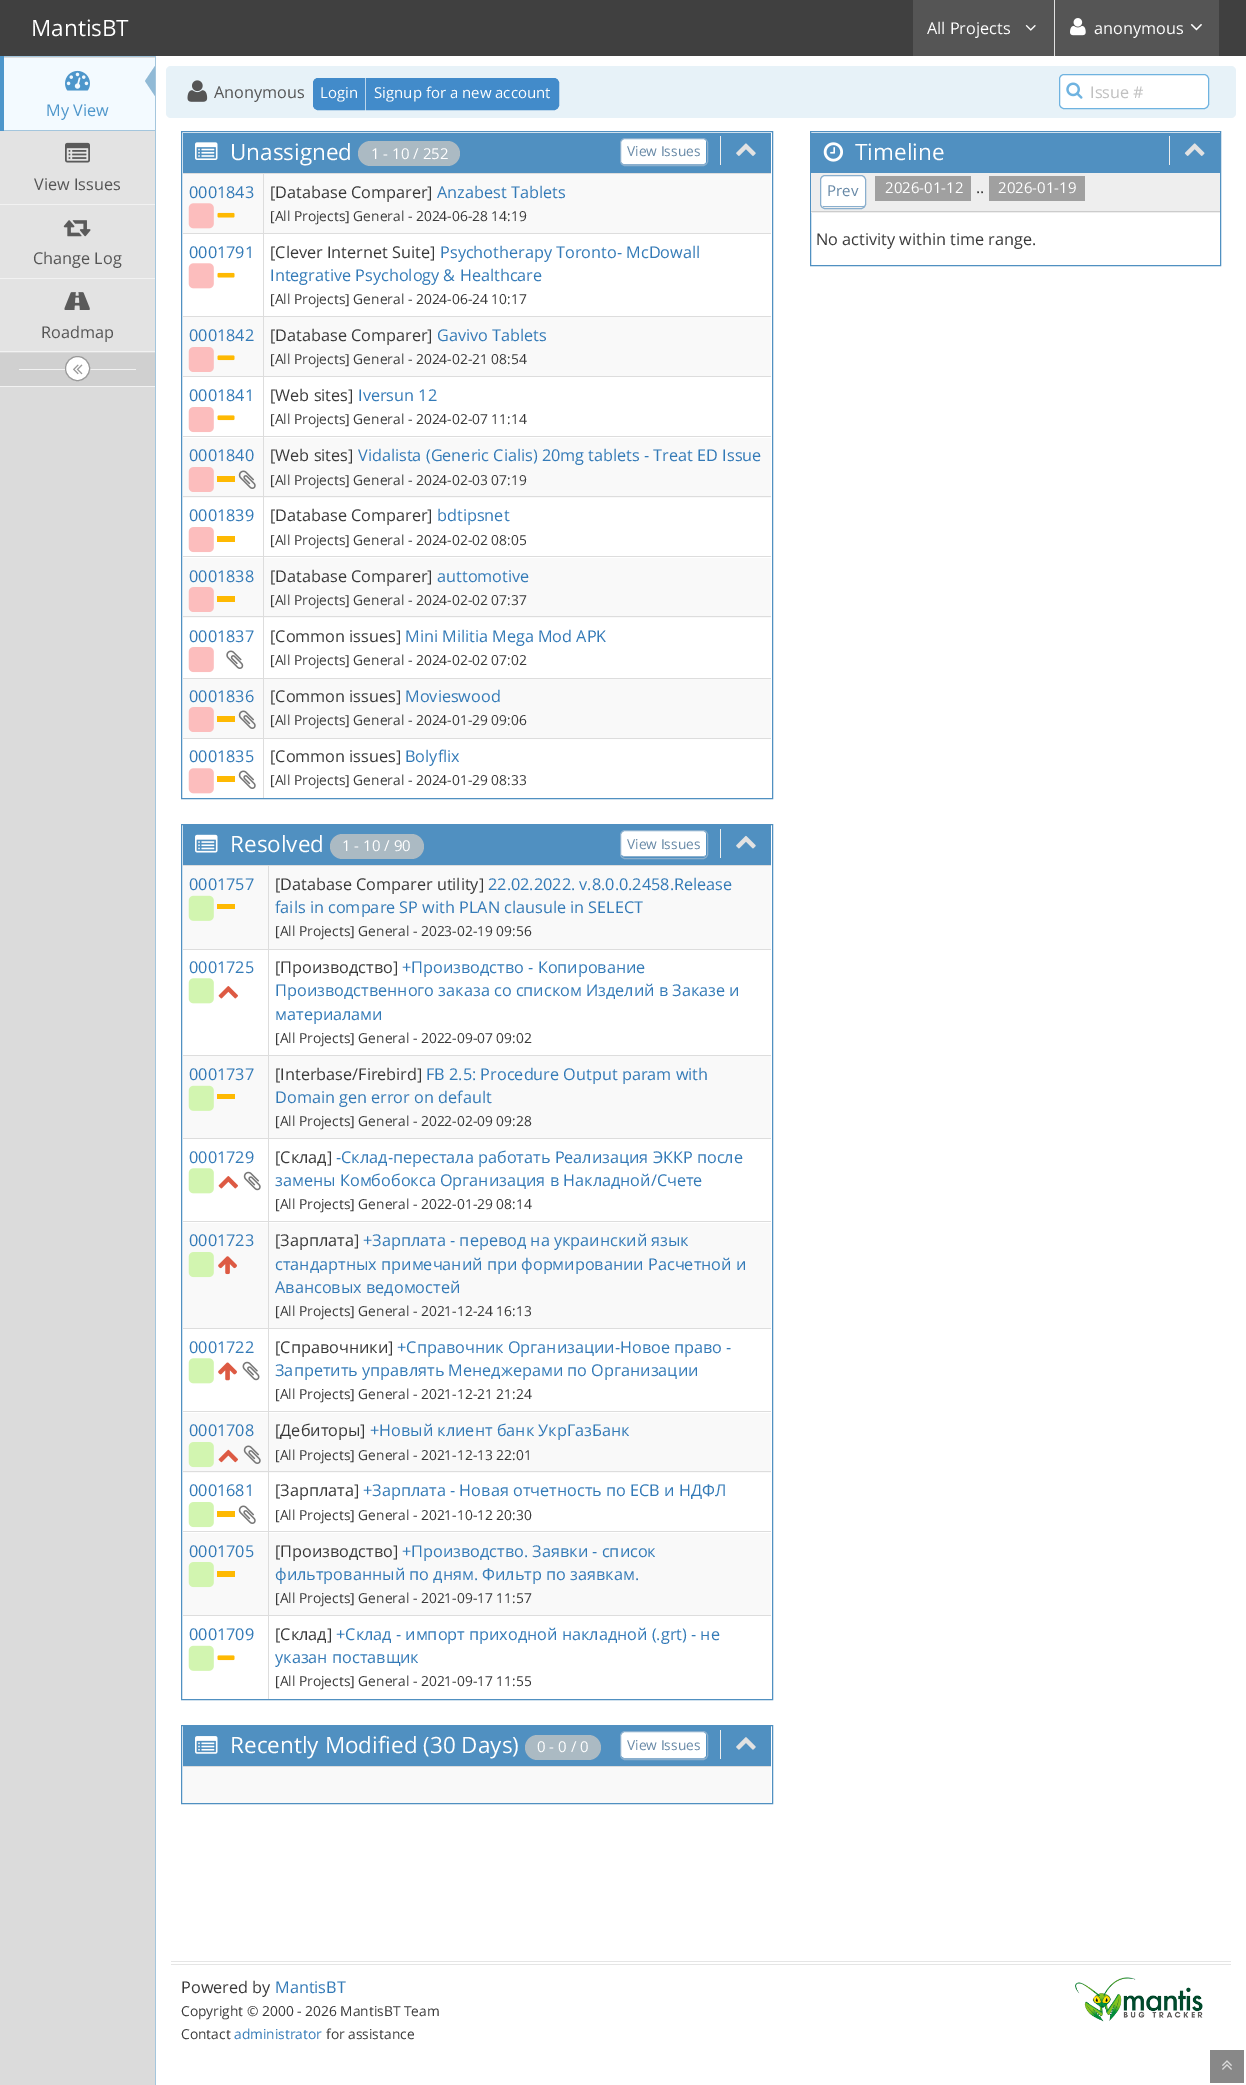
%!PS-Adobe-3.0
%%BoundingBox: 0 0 1246 2085
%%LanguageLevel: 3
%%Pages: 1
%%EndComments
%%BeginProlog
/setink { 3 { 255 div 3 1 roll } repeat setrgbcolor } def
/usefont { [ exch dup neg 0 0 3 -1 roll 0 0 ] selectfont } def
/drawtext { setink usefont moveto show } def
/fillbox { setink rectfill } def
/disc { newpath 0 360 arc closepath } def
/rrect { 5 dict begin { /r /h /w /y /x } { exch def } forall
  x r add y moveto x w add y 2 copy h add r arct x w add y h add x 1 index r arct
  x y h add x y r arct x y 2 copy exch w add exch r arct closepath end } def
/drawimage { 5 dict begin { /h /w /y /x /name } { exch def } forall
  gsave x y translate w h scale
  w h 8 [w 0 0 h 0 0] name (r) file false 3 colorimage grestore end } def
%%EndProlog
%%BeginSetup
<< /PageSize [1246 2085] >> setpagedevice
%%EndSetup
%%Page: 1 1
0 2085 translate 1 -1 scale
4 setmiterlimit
0 0 1246 2085 255 255 255 fillbox
0 0 1246 56 64 64 64 fillbox
(MantisBT) 31 36 /OpenSans-Regular 22.5 255 255 255 drawtext
913 0 141 56 85 85 85 fillbox
(All Projects) 927 34 /OpenSans-Regular 16.25 255 255 255 drawtext
(assets/img1.rgb) 1025 25 11 6 drawimage
1054 0 1 56 225 225 225 fillbox
1055 0 164 56 85 85 85 fillbox
(assets/img2.rgb) 1070 18 16 18 drawimage
(anonymous) 1094 34 /OpenSans-Regular 16.25 255 255 255 drawtext
(assets/img3.rgb) 1190 24 12 7 drawimage
0 57 155 2028 219 219 219 fillbox
155 56 1 2029 164 198 221 fillbox
0 56 155 1 164 198 221 fillbox
0 130 155 1 164 198 221 fillbox
0 56 4 75 77 150 203 fillbox
4 58 151 72 243 250 255 fillbox
(assets/img4.rgb) 65 70 25 21 drawimage
145 186 214 setink
155 66 moveto 155 96 lineto 145 81 lineto closepath fill
(My View) 46 116 /OpenSans-Regular 16.25 77 150 203 drawtext
0 131 155 73 227 227 227 fillbox
(assets/img5.rgb) 65 142 25 21 drawimage
(View Issues) 34 190 /OpenSans-Regular 16.25 85 85 85 drawtext
0 204 155 1 242 242 242 fillbox
0 205 155 73 227 227 227 fillbox
(assets/img6.rgb) 63 220 28 17 drawimage
(Change Log) 33 264 /OpenSans-Regular 16.25 85 85 85 drawtext
0 278 155 1 242 242 242 fillbox
0 351 155 1 242 242 242 fillbox
0 279 155 72 227 227 227 fillbox
(assets/img7.rgb) 64 292 26 18 drawimage
(Roadmap) 41 338 /OpenSans-Regular 16.25 85 85 85 drawtext
0 353 155 33 208 208 208 fillbox
0 386 155 1 242 242 242 fillbox
19 369 117 1 242 242 242 fillbox
255 255 255 setink
77.5 368.5 12 disc gsave fill grestore
153 153 153 setink
stroke
(assets/img8.rgb) 73 364 10 11 drawimage
231 242 248 setink
166 66 1070 52 5 rrect fill
(assets/img9.rgb) 187 80 21 22 drawimage
(Anonymous) 214 98 /OpenSans-Regular 16.25 85 85 85 drawtext
66 139 202 setink
318 78.5 moveto 364.5 78.5 lineto 364.5 109.5 lineto 318 109.5 lineto 315.5 109.5 313.5 107.5 313.5 105 curveto 313.5 83 lineto 313.5 80.5 315.5 78.5 318 78.5 curveto closepath gsave fill grestore
stroke
(Login) 320 98 /OpenSans-Regular 15 255 255 255 drawtext
66 139 202 setink
366.5 78.5 moveto 554 78.5 lineto 556.5 78.5 558.5 80.5 558.5 83 curveto 558.5 105 lineto 558.5 107.5 556.5 109.5 554 109.5 curveto 366.5 109.5 lineto closepath gsave fill grestore
stroke
(Signup for a new account) 374 98 /OpenSans-Regular 15 255 255 255 drawtext
1059.5 74.5 149 34 4.5 rrect gsave fill grestore
111 179 224 setink
stroke
(assets/img10.rgb) 1066 82 17 17 drawimage
(Issue #) 1090 98 /OpenSans-Regular 16.25 192 192 192 drawtext
80 144 193 setink
181.5 131.5 591 667 rectstroke
183 133 588 40 80 144 193 fillbox
(assets/img11.rgb) 195 142 23 18 drawimage
(Unassigned) 230 160 /OpenSans-Regular 22.5 255 255 255 drawtext
171 186 195 setink
358 141 102 25 12.5 rrect fill
(1 - 10 / 252) 371 159 /OpenSans-Regular 15 255 255 255 drawtext
625 139 moveto 702 139 lineto 705 139 706 140 706 142 curveto 706 161 lineto 706 163 705 164 702 164 curveto 625 164 lineto 623 164 621 163 621 161 curveto 621 142 lineto 621 140 623 139 625 139 curveto closepath fill
138 175 206 setink
620.5 138.5 87 27 4.5 rrect stroke
623 164 82 1 138 175 206 fillbox
(View Issues) 627 156 /OpenSans-Regular 13.75 102 136 166 drawtext
720 136 1 29 238 238 238 fillbox
(assets/img12.rgb) 736 143 20 13 drawimage
183 174 588 59 249 249 249 fillbox
263 173 508 1 221 221 221 fillbox
263 233 508 1 221 221 221 fillbox
183 317 588 59 249 249 249 fillbox
263 316 508 1 221 221 221 fillbox
263 376 508 1 221 221 221 fillbox
263 436 508 1 221 221 221 fillbox
183 438 588 60 249 249 249 fillbox
263 496 508 1 221 221 221 fillbox
263 556 508 1 221 221 221 fillbox
183 558 588 60 249 249 249 fillbox
263 616 508 1 221 221 221 fillbox
263 678 508 1 221 221 221 fillbox
183 679 588 59 249 249 249 fillbox
263 738 508 1 221 221 221 fillbox
263 738 1 60 221 221 221 fillbox
183 738 81 1 221 221 221 fillbox
263 678 1 61 221 221 221 fillbox
183 678 81 1 221 221 221 fillbox
263 616 1 63 221 221 221 fillbox
183 616 81 1 221 221 221 fillbox
263 556 1 62 221 221 221 fillbox
183 556 81 1 221 221 221 fillbox
263 496 1 62 221 221 221 fillbox
183 496 81 1 221 221 221 fillbox
263 436 1 62 221 221 221 fillbox
183 436 81 1 221 221 221 fillbox
263 376 1 62 221 221 221 fillbox
183 376 81 1 221 221 221 fillbox
263 316 1 62 221 221 221 fillbox
183 316 81 1 221 221 221 fillbox
263 233 1 85 221 221 221 fillbox
183 233 81 1 221 221 221 fillbox
263 173 1 61 221 221 221 fillbox
183 173 81 1 221 221 221 fillbox
(0001843) 189 198 /OpenSans-Regular 16.25 51 122 183 drawtext
(assets/img13.rgb) 188 203 26 26 drawimage
(assets/img14.rgb) 217 212 18 6 drawimage
([Database Comparer]) 270 198 /OpenSans-Regular 16.25 57 57 57 drawtext
(Anzabest Tablets) 437 198 /OpenSans-Regular 16.25 51 122 183 drawtext
([All Projects] General - 2024-06-28 14:19) 270 221 /OpenSans-Regular 13.8 57 57 57 drawtext
(0001791) 189 258 /OpenSans-Regular 16.25 51 122 183 drawtext
(assets/img15.rgb) 188 263 26 26 drawimage
(assets/img16.rgb) 217 272 18 6 drawimage
([Clever Internet Suite]) 270 258 /OpenSans-Regular 16.25 57 57 57 drawtext
(Psychotherapy Toronto- McDowall) 440 258 /OpenSans-Regular 16.25 51 122 183 drawtext
(Integrative Psychology & Healthcare) 270 281 /OpenSans-Regular 16.25 51 122 183 drawtext
([All Projects] General - 2024-06-24 10:17) 270 304 /OpenSans-Regular 13.8 57 57 57 drawtext
(0001842) 189 341 /OpenSans-Regular 16.25 51 122 183 drawtext
(assets/img17.rgb) 188 347 26 25 drawimage
(assets/img18.rgb) 217 355 18 6 drawimage
([Database Comparer]) 270 341 /OpenSans-Regular 16.25 57 57 57 drawtext
(Gavivo Tablets) 437 341 /OpenSans-Regular 16.25 51 122 183 drawtext
([All Projects] General - 2024-02-21 08:54) 270 364 /OpenSans-Regular 13.8 57 57 57 drawtext
(0001841) 189 401 /OpenSans-Regular 16.25 51 122 183 drawtext
(assets/img19.rgb) 188 407 26 26 drawimage
(assets/img20.rgb) 217 415 18 6 drawimage
([Web sites]) 270 401 /OpenSans-Regular 16.25 57 57 57 drawtext
(Iversun 12) 358 401 /OpenSans-Regular 16.25 51 122 183 drawtext
([All Projects] General - 2024-02-07 11:14) 270 424 /OpenSans-Regular 13.8 57 57 57 drawtext
(0001840) 189 461 /OpenSans-Regular 16.25 51 122 183 drawtext
(assets/img17.rgb) 188 467 26 25 drawimage
217 476 18 6 254 185 2 fillbox
(assets/img21.rgb) 238 470 18 19 drawimage
([Web sites]) 270 461 /OpenSans-Regular 16.25 57 57 57 drawtext
(Vidalista \(Generic Cialis\) 20mg tablets - Treat ED Issue) 358 461 /OpenSans-Regular 16.25 51 122 183 drawtext
([All Projects] General - 2024-02-03 07:19) 270 485 /OpenSans-Regular 13.8 57 57 57 drawtext
(0001839) 189 521 /OpenSans-Regular 16.25 51 122 183 drawtext
(assets/img19.rgb) 188 527 26 26 drawimage
217 536 18 6 254 185 2 fillbox
([Database Comparer]) 270 521 /OpenSans-Regular 16.25 57 57 57 drawtext
(bdtipsnet) 437 521 /OpenSans-Regular 16.25 51 122 183 drawtext
([All Projects] General - 2024-02-02 08:05) 270 545 /OpenSans-Regular 13.8 57 57 57 drawtext
(0001838) 189 582 /OpenSans-Regular 16.25 51 122 183 drawtext
(assets/img17.rgb) 188 587 26 25 drawimage
217 596 18 6 254 185 2 fillbox
([Database Comparer]) 270 582 /OpenSans-Regular 16.25 57 57 57 drawtext
(auttomotive) 437 582 /OpenSans-Regular 16.25 51 122 183 drawtext
([All Projects] General - 2024-02-02 07:37) 270 605 /OpenSans-Regular 13.8 57 57 57 drawtext
(0001837) 189 642 /OpenSans-Regular 16.25 51 122 183 drawtext
(assets/img19.rgb) 188 647 26 26 drawimage
(assets/img22.rgb) 226 650 18 19 drawimage
([Common issues]) 270 642 /OpenSans-Regular 16.25 57 57 57 drawtext
(Mini Militia Mega Mod APK) 405 642 /OpenSans-Regular 16.25 51 122 183 drawtext
([All Projects] General - 2024-02-02 07:02) 270 665 /OpenSans-Regular 13.8 57 57 57 drawtext
(0001836) 189 702 /OpenSans-Regular 16.25 51 122 183 drawtext
(assets/img17.rgb) 188 707 26 25 drawimage
217 716 18 6 254 185 2 fillbox
(assets/img21.rgb) 238 710 18 19 drawimage
([Common issues]) 270 702 /OpenSans-Regular 16.25 57 57 57 drawtext
(Movieswood) 405 702 /OpenSans-Regular 16.25 51 122 183 drawtext
([All Projects] General - 2024-01-29 09:06) 270 725 /OpenSans-Regular 13.8 57 57 57 drawtext
(0001835) 189 762 /OpenSans-Regular 16.25 51 122 183 drawtext
(assets/img15.rgb) 188 768 26 26 drawimage
217 776 18 6 254 185 2 fillbox
(assets/img23.rgb) 238 770 18 19 drawimage
([Common issues]) 270 762 /OpenSans-Regular 16.25 57 57 57 drawtext
(Bolyflix) 405 762 /OpenSans-Regular 16.25 51 122 183 drawtext
([All Projects] General - 2024-01-29 08:33) 270 785 /OpenSans-Regular 13.8 57 57 57 drawtext
80 144 193 setink
181.5 824.5 591 875 rectstroke
183 825 588 40 80 144 193 fillbox
(assets/img24.rgb) 195 834 23 19 drawimage
(Resolved) 230 852 /OpenSans-Regular 22.5 255 255 255 drawtext
171 186 195 setink
330 834 94 25 12.5 rrect fill
(1 - 10 / 90) 342 851 /OpenSans-Regular 15 255 255 255 drawtext
625 831 moveto 702 831 lineto 705 831 706 833 706 835 curveto 706 854 lineto 706 855 705 856 702 856 curveto 625 856 lineto 623 856 621 855 621 854 curveto 621 835 lineto 621 833 623 831 625 831 curveto closepath fill
138 175 206 setink
620.5 830.5 87 28 4.5 rrect stroke
623 856 82 1 138 175 206 fillbox
(View Issues) 627 849 /OpenSans-Regular 13.75 102 136 166 drawtext
720 829 1 29 238 238 238 fillbox
(assets/img25.rgb) 736 835 20 14 drawimage
183 866 588 83 249 249 249 fillbox
268 865 503 1 221 221 221 fillbox
268 949 503 1 221 221 221 fillbox
268 1055 503 1 221 221 221 fillbox
183 1056 588 82 249 249 249 fillbox
268 1138 503 1 221 221 221 fillbox
268 1221 503 1 221 221 221 fillbox
183 1223 588 105 249 249 249 fillbox
268 1328 503 1 221 221 221 fillbox
268 1411 503 1 221 221 221 fillbox
183 1413 588 60 249 249 249 fillbox
268 1471 503 1 221 221 221 fillbox
268 1531 503 1 221 221 221 fillbox
183 1533 588 82 249 249 249 fillbox
268 1615 503 1 221 221 221 fillbox
268 1615 1 84 221 221 221 fillbox
183 1615 86 1 221 221 221 fillbox
268 1531 1 85 221 221 221 fillbox
183 1531 86 1 221 221 221 fillbox
268 1471 1 62 221 221 221 fillbox
183 1471 86 1 221 221 221 fillbox
268 1411 1 62 221 221 221 fillbox
183 1411 86 1 221 221 221 fillbox
268 1328 1 85 221 221 221 fillbox
183 1328 86 1 221 221 221 fillbox
268 1221 1 108 221 221 221 fillbox
183 1221 86 1 221 221 221 fillbox
268 1138 1 85 221 221 221 fillbox
183 1138 86 1 221 221 221 fillbox
268 1055 1 84 221 221 221 fillbox
183 1055 86 1 221 221 221 fillbox
268 949 1 107 221 221 221 fillbox
183 949 86 1 221 221 221 fillbox
268 865 1 85 221 221 221 fillbox
183 865 86 1 221 221 221 fillbox
(0001757) 189 890 /OpenSans-Regular 16.25 51 122 183 drawtext
(assets/img26.rgb) 188 895 26 26 drawimage
217 904 18 5 254 185 2 fillbox
([Database Comparer utility]) 275 890 /OpenSans-Regular 16.25 57 57 57 drawtext
(22.02.2022. v.8.0.0.2458.Release) 488 890 /OpenSans-Regular 16.25 51 122 183 drawtext
(fails in compare SP with PLAN clausule in SELECT) 275 913 /OpenSans-Regular 16.25 51 122 183 drawtext
([All Projects] General - 2023-02-19 09:56) 275 936 /OpenSans-Regular 13.8 57 57 57 drawtext
(0001725) 189 973 /OpenSans-Regular 16.25 51 122 183 drawtext
(assets/img27.rgb) 188 978 26 26 drawimage
(assets/img28.rgb) 218 986 20 13 drawimage
([Производство]) 275 973 /OpenSans-Regular 16.25 57 57 57 drawtext
(+Производство - Копирование) 402 973 /OpenSans-Regular 16.25 51 122 183 drawtext
(Производственного заказа со списком Изделий в Заказе и) 275 996 /OpenSans-Regular 16.25 51 122 183 drawtext
(материалами) 275 1020 /OpenSans-Regular 16.25 51 122 183 drawtext
([All Projects] General - 2022-09-07 09:02) 275 1043 /OpenSans-Regular 13.8 57 57 57 drawtext
(0001737) 189 1080 /OpenSans-Regular 16.25 51 122 183 drawtext
(assets/img26.rgb) 188 1085 26 26 drawimage
217 1094 18 5 254 185 2 fillbox
([Interbase/Firebird]) 275 1080 /OpenSans-Regular 16.25 57 57 57 drawtext
(FB 2.5: Procedure Output param with) 426 1080 /OpenSans-Regular 16.25 51 122 183 drawtext
(Domain gen error on default) 275 1103 /OpenSans-Regular 16.25 51 122 183 drawtext
([All Projects] General - 2022-02-09 09:28) 275 1126 /OpenSans-Regular 13.8 57 57 57 drawtext
(0001729) 189 1163 /OpenSans-Regular 16.25 51 122 183 drawtext
(assets/img27.rgb) 188 1168 26 26 drawimage
(assets/img28.rgb) 218 1176 20 13 drawimage
(assets/img29.rgb) 243 1171 18 20 drawimage
([Склад]) 275 1163 /OpenSans-Regular 16.25 57 57 57 drawtext
(-Склад-перестала работать Реализация ЭККР после) 336 1163 /OpenSans-Regular 16.25 51 122 183 drawtext
(замены Комбобокса Организация в Накладной/Счете) 275 1186 /OpenSans-Regular 16.25 51 122 183 drawtext
([All Projects] General - 2022-01-29 08:14) 275 1209 /OpenSans-Regular 13.8 57 57 57 drawtext
(0001723) 189 1246 /OpenSans-Regular 16.25 51 122 183 drawtext
(assets/img30.rgb) 188 1252 26 26 drawimage
(assets/img31.rgb) 218 1256 19 19 drawimage
([Зарплата]) 275 1246 /OpenSans-Regular 16.25 57 57 57 drawtext
(+Зарплата - перевод на украинский язык) 363 1246 /OpenSans-Regular 16.25 51 122 183 drawtext
(стандартных примечаний при формировании Расчетной и) 275 1270 /OpenSans-Regular 16.25 51 122 183 drawtext
(Авансовых ведомостей) 275 1293 /OpenSans-Regular 16.25 51 122 183 drawtext
([All Projects] General - 2021-12-24 16:13) 275 1316 /OpenSans-Regular 13.8 57 57 57 drawtext
(0001722) 189 1353 /OpenSans-Regular 16.25 51 122 183 drawtext
(assets/img27.rgb) 188 1358 26 26 drawimage
(assets/img32.rgb) 218 1362 19 19 drawimage
(assets/img33.rgb) 242 1361 18 20 drawimage
([Справочники]) 275 1353 /OpenSans-Regular 16.25 57 57 57 drawtext
(+Справочник Организации-Новое право -) 397 1353 /OpenSans-Regular 16.25 51 122 183 drawtext
(Запретить управлять Менеджерами по Организации) 275 1376 /OpenSans-Regular 16.25 51 122 183 drawtext
([All Projects] General - 2021-12-21 21:24) 275 1399 /OpenSans-Regular 13.8 57 57 57 drawtext
(0001708) 189 1436 /OpenSans-Regular 16.25 51 122 183 drawtext
(assets/img30.rgb) 188 1442 26 26 drawimage
(assets/img34.rgb) 218 1449 20 14 drawimage
(assets/img21.rgb) 243 1445 18 19 drawimage
([Дебиторы]) 275 1436 /OpenSans-Regular 16.25 57 57 57 drawtext
(+Новый клиент банк УкрГазБанк) 370 1436 /OpenSans-Regular 16.25 51 122 183 drawtext
([All Projects] General - 2021-12-13 22:01) 275 1460 /OpenSans-Regular 13.8 57 57 57 drawtext
(0001681) 189 1496 /OpenSans-Regular 16.25 51 122 183 drawtext
(assets/img35.rgb) 188 1502 26 26 drawimage
217 1511 18 6 254 185 2 fillbox
(assets/img23.rgb) 238 1505 18 19 drawimage
([Зарплата]) 275 1496 /OpenSans-Regular 16.25 57 57 57 drawtext
(+Зарплата - Новая отчетность по ЕСВ и НДФЛ) 363 1496 /OpenSans-Regular 16.25 51 122 183 drawtext
([All Projects] General - 2021-10-12 20:30) 275 1520 /OpenSans-Regular 13.8 57 57 57 drawtext
(0001705) 189 1557 /OpenSans-Regular 16.25 51 122 183 drawtext
(assets/img30.rgb) 188 1562 26 26 drawimage
217 1571 18 6 254 185 2 fillbox
([Производство]) 275 1557 /OpenSans-Regular 16.25 57 57 57 drawtext
(+Производство. Заявки - список) 402 1557 /OpenSans-Regular 16.25 51 122 183 drawtext
(фильтрованный по дням. Фильтр по заявкам.) 275 1580 /OpenSans-Regular 16.25 51 122 183 drawtext
([All Projects] General - 2021-09-17 11:57) 275 1603 /OpenSans-Regular 13.8 57 57 57 drawtext
(0001709) 189 1640 /OpenSans-Regular 16.25 51 122 183 drawtext
(assets/img36.rgb) 188 1645 26 26 drawimage
(assets/img20.rgb) 217 1655 18 6 drawimage
([Склад]) 275 1640 /OpenSans-Regular 16.25 57 57 57 drawtext
(+Склад - импорт приходной накладной \(.grt\) - не) 336 1640 /OpenSans-Regular 16.25 51 122 183 drawtext
(указан поставщик) 275 1663 /OpenSans-Regular 16.25 51 122 183 drawtext
([All Projects] General - 2021-09-17 11:55) 275 1686 /OpenSans-Regular 13.8 57 57 57 drawtext
80 144 193 setink
181.5 1725.5 591 78 rectstroke
183 1726 588 40 80 144 193 fillbox
(assets/img37.rgb) 195 1736 23 18 drawimage
(Recently Modified \(30 Days\)) 230 1753 /OpenSans-Regular 22.5 255 255 255 drawtext
171 186 195 setink
525 1735 76 25 12.5 rrect fill
(0 - 0 / 0) 537 1752 /OpenSans-Regular 15 255 255 255 drawtext
625 1732 moveto 702 1732 lineto 705 1732 706 1734 706 1736 curveto 706 1755 lineto 706 1756 705 1758 702 1758 curveto 625 1758 lineto 623 1758 621 1756 621 1755 curveto 621 1736 lineto 621 1734 623 1732 625 1732 curveto closepath fill
138 175 206 setink
620.5 1731.5 87 28 4.5 rrect stroke
623 1758 82 1 138 175 206 fillbox
(View Issues) 627 1750 /OpenSans-Regular 13.75 102 136 166 drawtext
720 1730 1 29 238 238 238 fillbox
(assets/img38.rgb) 736 1737 20 13 drawimage
183 1767 588 36 249 249 249 fillbox
183 1766 588 1 221 221 221 fillbox
80 144 193 setink
810.5 131.5 410 134 rectstroke
811 133 409 40 80 144 193 fillbox
(assets/img39.rgb) 823 142 20 20 drawimage
(Timeline) 855 160 /OpenSans-Regular 22.5 255 255 255 drawtext
1169 136 1 29 238 238 238 fillbox
(assets/img40.rgb) 1184 143 21 13 drawimage
811 173 409 40 238 238 238 fillbox
811 211 409 1 204 204 204 fillbox
255 255 255 setink
825 176 moveto 861 176 lineto 863 176 865 178 865 180 curveto 865 204 lineto 865 205 863 206 861 206 curveto 825 206 lineto 823 206 821 205 821 204 curveto 821 180 lineto 821 178 823 176 825 176 curveto closepath fill
138 175 206 setink
820.5 175.5 45 33 4.5 rrect stroke
823 206 41 1 138 175 206 fillbox
(Prev) 827 196 /OpenSans-Regular 15 102 136 166 drawtext
875 176 96 25 160 160 160 fillbox
(2026-01-12) 885 193 /OpenSans-Regular 15 255 255 255 drawtext
(..) 976 193 /OpenSans-Regular 16.25 57 57 57 drawtext
989 176 96 25 160 160 160 fillbox
(2026-01-19) 998 193 /OpenSans-Regular 15 255 255 255 drawtext
(No activity within time range.) 816 245 /OpenSans-Regular 16.25 57 57 57 drawtext
171 1961 1060 1 229 229 229 fillbox
171 1964 1060 1 229 229 229 fillbox
(Powered by) 181 1993 /OpenSans-Regular 16.25 57 57 57 drawtext
(MantisBT) 275 1993 /OpenSans-Regular 16.25 51 122 183 drawtext
(Copyright © 2000 - 2026 MantisBT Team) 181 2016 /OpenSans-Regular 13.8 57 57 57 drawtext
(Contact) 181 2039 /OpenSans-Regular 13.8 57 57 57 drawtext
(administrator) 234 2039 /OpenSans-Regular 13.8 51 122 183 drawtext
(for assistance) 326 2039 /OpenSans-Regular 13.8 57 57 57 drawtext
(assets/img41.rgb) 1075 1977 128 45 drawimage
1210 2050 34 33 136 136 136 fillbox
(assets/img42.rgb) 1222 2060 10 10 drawimage
showpage
%%EOF
